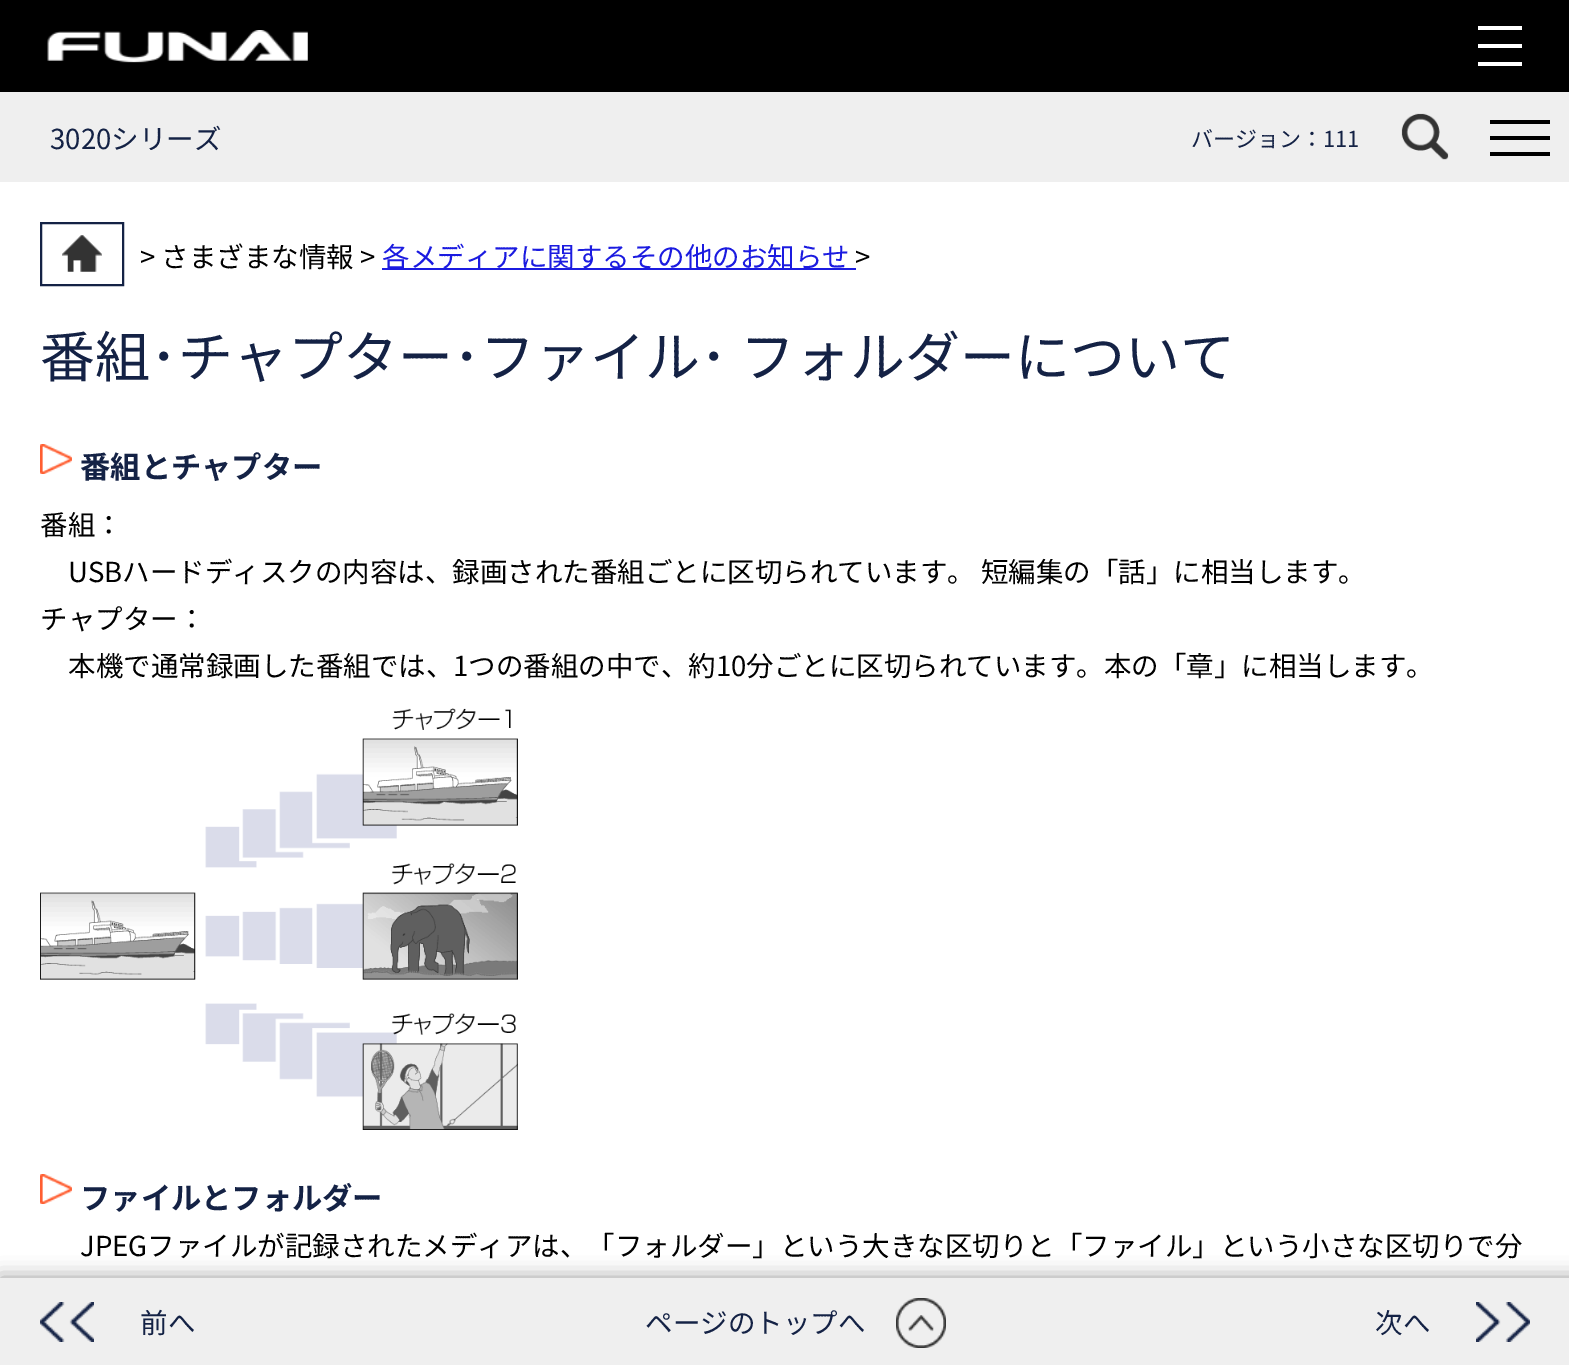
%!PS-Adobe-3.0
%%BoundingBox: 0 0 1569 1365
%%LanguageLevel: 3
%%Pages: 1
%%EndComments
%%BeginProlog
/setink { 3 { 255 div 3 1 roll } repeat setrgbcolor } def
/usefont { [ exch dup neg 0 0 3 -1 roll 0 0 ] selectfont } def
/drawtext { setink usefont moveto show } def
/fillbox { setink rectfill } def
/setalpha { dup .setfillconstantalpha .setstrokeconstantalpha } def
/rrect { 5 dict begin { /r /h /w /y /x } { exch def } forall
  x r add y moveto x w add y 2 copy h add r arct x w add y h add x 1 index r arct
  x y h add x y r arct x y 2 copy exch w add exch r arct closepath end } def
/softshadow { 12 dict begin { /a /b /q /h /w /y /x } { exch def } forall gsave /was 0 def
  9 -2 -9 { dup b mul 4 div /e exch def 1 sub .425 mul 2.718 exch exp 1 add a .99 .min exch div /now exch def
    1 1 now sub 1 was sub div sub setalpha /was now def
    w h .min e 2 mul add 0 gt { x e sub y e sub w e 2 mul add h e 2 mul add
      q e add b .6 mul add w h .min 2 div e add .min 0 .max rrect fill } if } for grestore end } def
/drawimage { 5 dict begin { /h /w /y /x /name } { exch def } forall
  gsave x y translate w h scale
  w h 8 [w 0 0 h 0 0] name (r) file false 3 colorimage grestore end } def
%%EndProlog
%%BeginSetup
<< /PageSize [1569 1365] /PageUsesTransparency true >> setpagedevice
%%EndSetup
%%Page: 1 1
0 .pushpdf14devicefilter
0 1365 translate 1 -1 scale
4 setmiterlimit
0 0 1569 1365 255 255 255 fillbox
0 0 1569 92 0 0 0 fillbox
(assets/img1.rgb) 47 30 261 33 drawimage
1478 26 44 4 255 255 255 fillbox
1478 62 44 4 255 255 255 fillbox
1478 44 44 4 255 255 255 fillbox
0 92 1569 90 239 239 239 fillbox
(3020シリーズ) 50 149 /NotoSansJP-Regular 27.5 20 34 69 drawtext
(assets/img2.rgb) 1401 113 48 47 drawimage
1490 120 60 4 0 0 0 fillbox
1490 136 60 4 0 0 0 fillbox
1490 152 60 4 0 0 0 fillbox
(バージョン：111) 1191 147 /NotoSansJP-Regular 22 20 34 69 drawtext
(assets/img3.rgb) 62 235 40 37 drawimage
2 setlinewidth
41 223 82 62 rectstroke
(> さまざまな情報 >) 140 267 /NotoSansJP-Regular 27.5 0 0 0 drawtext
382 268 474 2 27 27 224 fillbox
(各メディアに関するその他のお知らせ) 382 267 /NotoSansJP-Regular 27.5 27 27 224 drawtext
(>) 855 267 /NotoSansJP-Regular 27.5 0 0 0 drawtext
(番組･チャプター･ファイル･ フォルダーについて) 40 377 /NotoSansJP-Regular 55 20 34 69 drawtext
(assets/img4.rgb) 40 444 32 30 drawimage
(番組とチャプター) 80 478 /NotoSansJP-Bold 30.25 20 34 69 drawtext
(番組：) 40 535 /NotoSansJP-Regular 27.5 0 0 0 drawtext
(USBハードディスクの内容は、録画された番組ごとに区切られています。 短編集の「話」に相当します。) 68 582 /NotoSansJP-Regular 27.5 0 0 0 drawtext
(チャプター：) 40 629 /NotoSansJP-Regular 27.5 0 0 0 drawtext
(本機で通常録画した番組では、1つの番組の中で、約10分ごとに区切られています。本の「章」に相当します。) 68 676 /NotoSansJP-Regular 27.5 0 0 0 drawtext
(assets/img5.rgb) 40 708 478 422 drawimage
(assets/img4.rgb) 40 1174 32 30 drawimage
(ファイルとフォルダー) 80 1209 /NotoSansJP-Bold 30.25 20 34 69 drawtext
(JPEGファイルが記録されたメディアは、「フォルダー」という大きな区切りと「ファイル」という小さな区切りで分) 80 1256 /NotoSansJP-Regular 27.5 0 0 0 drawtext
0 1278 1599 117 0 10 0.4 softshadow
0 1278 1569 87 239 239 239 fillbox
(assets/img6.rgb) 40 1302 54 40 drawimage
(前へ) 140 1333 /NotoSansJP-Regular 27.5 20 34 69 drawtext
(assets/img7.rgb) 896 1298 50 50 drawimage
(ページのトップへ) 645 1333 /NotoSansJP-Regular 27.5 20 34 69 drawtext
(assets/img8.rgb) 1476 1302 54 40 drawimage
(次へ) 1375 1333 /NotoSansJP-Regular 27.5 20 34 69 drawtext
.poppdf14devicefilter showpage
%%EOF
